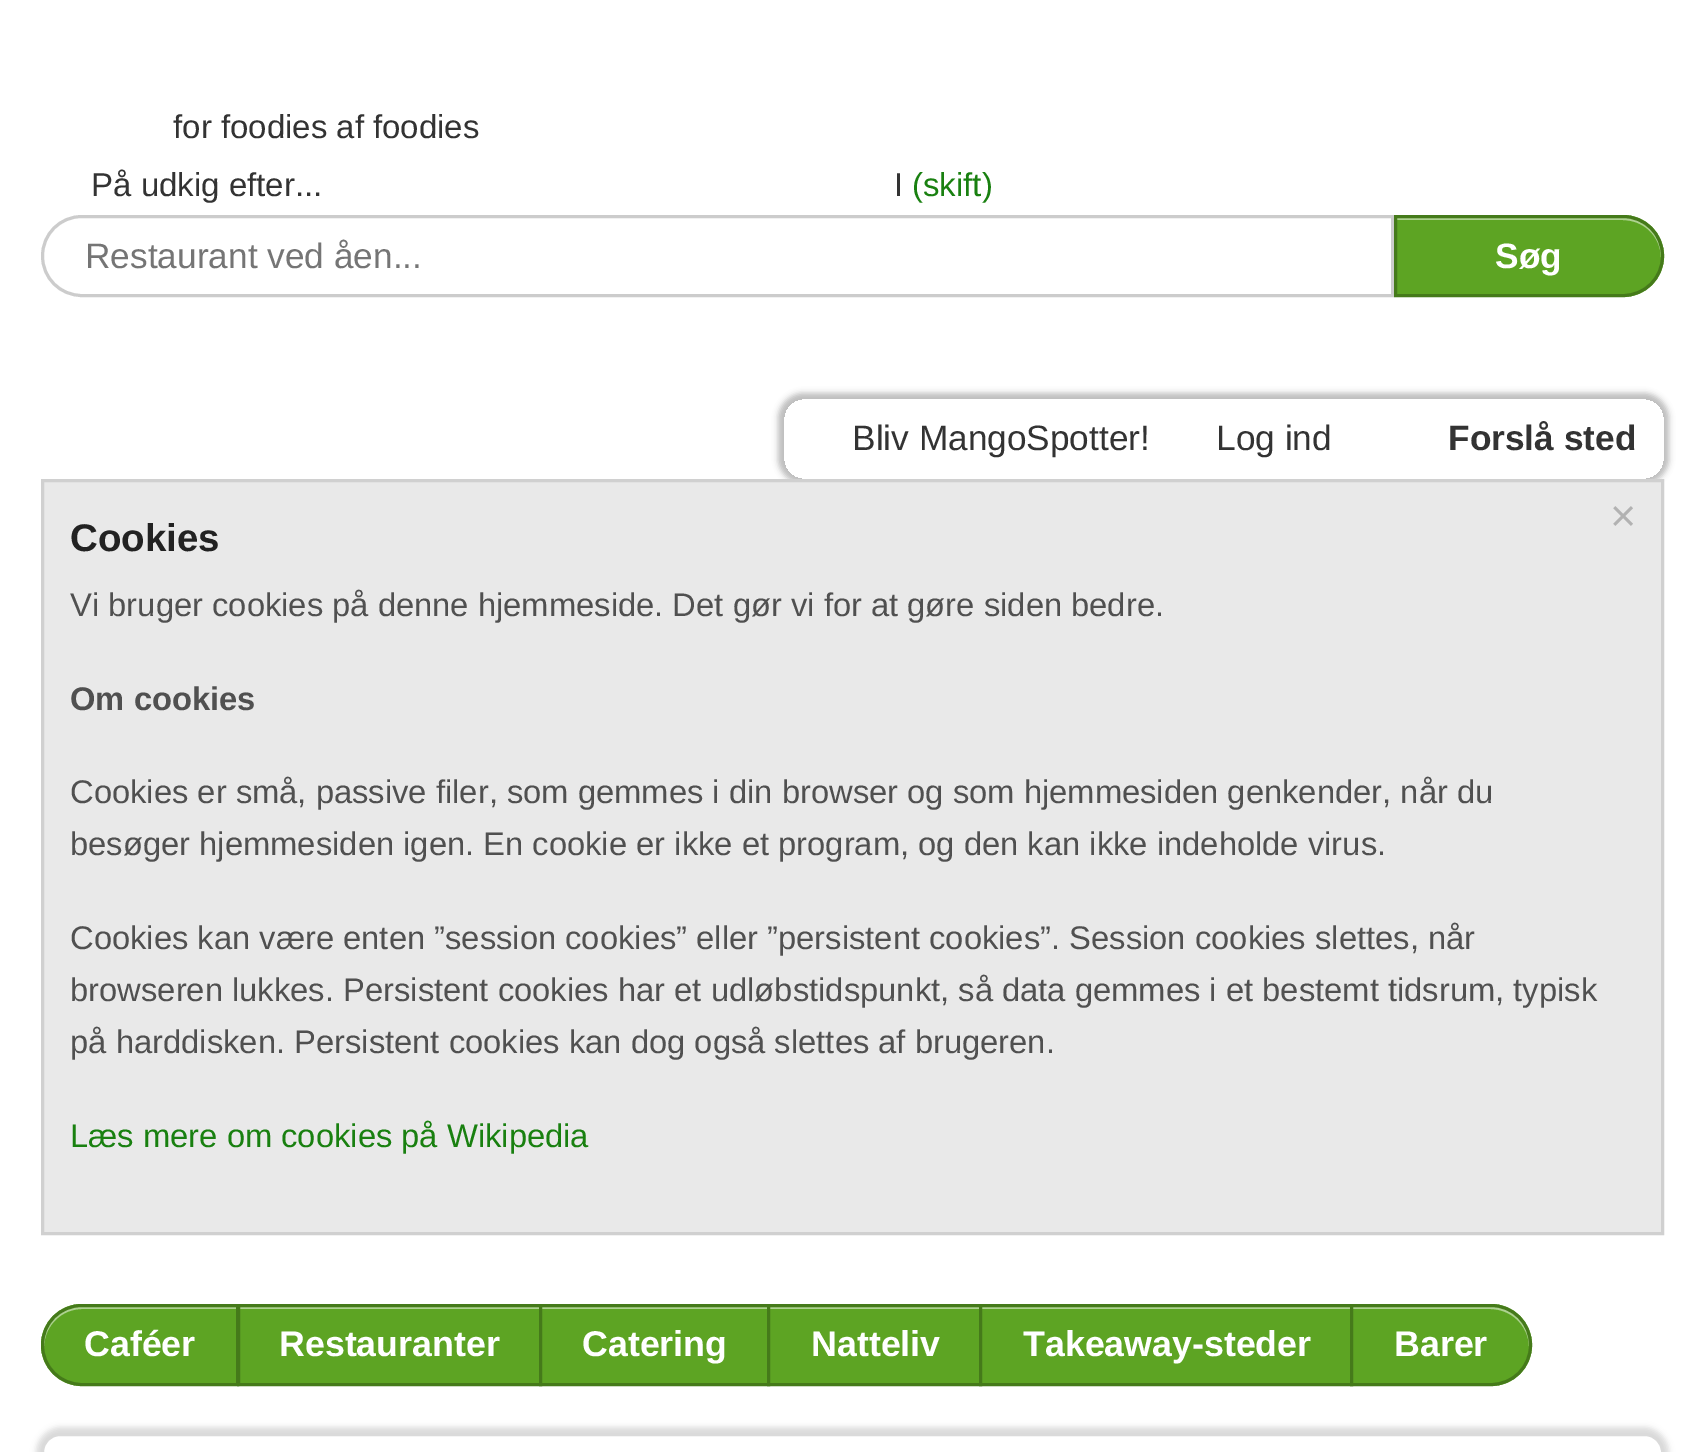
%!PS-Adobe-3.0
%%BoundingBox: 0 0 1703 1452
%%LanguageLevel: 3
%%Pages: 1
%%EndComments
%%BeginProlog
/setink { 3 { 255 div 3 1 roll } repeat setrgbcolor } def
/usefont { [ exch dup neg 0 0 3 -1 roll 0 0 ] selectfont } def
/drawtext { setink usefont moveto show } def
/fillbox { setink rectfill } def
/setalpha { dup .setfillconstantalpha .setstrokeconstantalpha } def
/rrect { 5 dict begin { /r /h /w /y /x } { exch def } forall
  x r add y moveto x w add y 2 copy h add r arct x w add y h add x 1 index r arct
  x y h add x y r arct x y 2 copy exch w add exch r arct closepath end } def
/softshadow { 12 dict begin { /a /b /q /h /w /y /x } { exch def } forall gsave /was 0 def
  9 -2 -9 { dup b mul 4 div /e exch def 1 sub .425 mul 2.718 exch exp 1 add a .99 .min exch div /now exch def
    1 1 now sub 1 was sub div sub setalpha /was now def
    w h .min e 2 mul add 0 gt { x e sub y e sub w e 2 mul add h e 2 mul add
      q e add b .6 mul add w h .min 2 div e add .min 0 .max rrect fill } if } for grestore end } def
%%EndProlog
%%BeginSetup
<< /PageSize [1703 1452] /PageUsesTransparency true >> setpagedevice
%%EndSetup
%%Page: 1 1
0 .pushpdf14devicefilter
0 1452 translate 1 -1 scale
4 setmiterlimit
0 0 1703 1452 255 255 255 fillbox
(for foodies af foodies) 173 138 /LiberationSans-Regular 33 51 51 51 drawtext
(På udkig efter...) 91 196 /LiberationSans-Regular 33 51 51 51 drawtext
(I) 894 196 /LiberationSans-Regular 33 51 51 51 drawtext
(\(skift\)) 912 196 /LiberationSans-Regular 33 25 128 16 drawtext
204 204 204 setink
3 setlinewidth
82 216.5 moveto 1392.5 216.5 lineto 1392.5 295.5 lineto 82 295.5 lineto 60 295.5 42.5 278 42.5 256 curveto 42.5 234 60 216.5 82 216.5 curveto closepath stroke
(Restaurant ved åen...) 85 268 /LiberationSans-Regular 35.25 117 117 117 drawtext
93 164 35 setink
1394 215 moveto 1623 215 lineto 1645.5 215 1664 233.5 1664 256 curveto 1664 278.5 1645.5 297 1623 297 curveto 1394 297 lineto closepath fill
174 210 145 setink
1397 220 moveto 1622 220 lineto 1644 220 1660 236 1661 257 curveto 1661 256 lineto 1661 234 1644 217 1622 217 curveto 1397 217 lineto closepath fill
69 122 26 setink
1395.5 216.5 moveto 1623 216.5 lineto 1645 216.5 1662.5 234 1662.5 256 curveto 1662.5 278 1645 295.5 1623 295.5 curveto 1395.5 295.5 lineto closepath stroke
(Søg) 1495 268 /LiberationSans-Bold 35.25 255 255 255 drawtext
gsave
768 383 moveto 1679 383 lineto 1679 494 lineto 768 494 lineto closepath 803 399 moveto 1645 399 lineto 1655.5 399 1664 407.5 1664 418 curveto 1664 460 lineto 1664 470.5 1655.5 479 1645 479 curveto 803 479 lineto 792.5 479 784 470.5 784 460 curveto 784 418 lineto 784 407.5 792.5 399 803 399 curveto closepath eoclip newpath
188 188 188 setink
778 393 891 91 25 3 1 softshadow
grestore
(Bliv MangoSpotter!) 852 450 /LiberationSans-Regular 35.25 51 51 51 drawtext
(Log ind) 1216 450 /LiberationSans-Regular 35.25 51 51 51 drawtext
(Forslå sted) 1448 450 /LiberationSans-Bold 35.25 51 51 51 drawtext
233 233 233 setink
42.5 480.5 moveto 1662.5 480.5 lineto 1662.5 1233.5 lineto 42.5 1233.5 lineto closepath gsave fill grestore
208 208 208 setink
stroke
(×) 1610 531 /LiberationSans-Regular 45 178 178 178 drawtext
(Læs mere om cookies på Wikipedia) 70 1147 /LiberationSans-Regular 32.75 25 128 16 drawtext
(Cookies) 70 551 /LiberationSans-Bold 38.5 34 34 34 drawtext
(Vi bruger cookies på denne hjemmeside. Det gør vi for at gøre siden bedre.) 70 616 /LiberationSans-Regular 32.75 80 80 80 drawtext
(Om cookies) 70 710 /LiberationSans-Bold 32.75 80 80 80 drawtext
(Cookies er små, passive filer, som gemmes i din browser og som hjemmesiden genkender, når du) 70 803 /LiberationSans-Regular 32.75 80 80 80 drawtext
(besøger hjemmesiden igen. En cookie er ikke et program, og den kan ikke indeholde virus.) 70 855 /LiberationSans-Regular 32.75 80 80 80 drawtext
(Cookies kan være enten ”session cookies” eller ”persistent cookies”. Session cookies slettes, når) 70 949 /LiberationSans-Regular 32.75 80 80 80 drawtext
(browseren lukkes. Persistent cookies har et udløbstidspunkt, så data gemmes i et bestemt tidsrum, typisk) 70 1001 /LiberationSans-Regular 32.75 80 80 80 drawtext
(på harddisken. Persistent cookies kan dog også slettes af brugeren.) 70 1053 /LiberationSans-Regular 32.75 80 80 80 drawtext
93 164 35 setink
82 1304 moveto 239 1304 lineto 239 1386 lineto 82 1386 lineto 59.5 1386 41 1367.5 41 1345 curveto 41 1322.5 59.5 1304 82 1304 curveto closepath fill
174 210 145 setink
82 1309 moveto 236 1309 lineto 236 1383 lineto 237 1383 lineto 237 1306 lineto 82 1306 lineto 61 1306 44 1323 44 1344 curveto 44 1346 lineto 45 1325 62 1309 82 1309 curveto closepath fill
69 122 26 setink
82 1305.5 moveto 237.5 1305.5 lineto 237.5 1384.5 lineto 82 1384.5 lineto 60 1384.5 42.5 1367 42.5 1345 curveto 42.5 1323 60 1305.5 82 1305.5 curveto closepath stroke
(Caféer) 84 1356 /LiberationSans-Bold 35.75 255 255 255 drawtext
240 1309 299 74 93 164 35 fillbox
239 1307 300 2 174 210 145 fillbox
69 122 26 setink
238.5 1305.5 302 79 rectstroke
(Restauranter) 279 1356 /LiberationSans-Bold 35.75 255 255 255 drawtext
542 1309 225 74 93 164 35 fillbox
542 1307 225 2 174 210 145 fillbox
69 122 26 setink
540.5 1305.5 228 79 rectstroke
(Catering) 582 1356 /LiberationSans-Bold 35.75 255 255 255 drawtext
770 1309 209 74 93 164 35 fillbox
770 1307 209 2 174 210 145 fillbox
69 122 26 setink
768.5 1305.5 212 79 rectstroke
(Natteliv) 811 1356 /LiberationSans-Bold 35.75 255 255 255 drawtext
982 1309 368 74 93 164 35 fillbox
982 1307 368 2 174 210 145 fillbox
69 122 26 setink
980.5 1305.5 371 79 rectstroke
(Takeaway-steder) 1023 1356 /LiberationSans-Bold 35.75 255 255 255 drawtext
93 164 35 setink
1350 1304 moveto 1491 1304 lineto 1513.5 1304 1532 1322.5 1532 1345 curveto 1532 1367.5 1513.5 1386 1491 1386 curveto 1350 1386 lineto closepath fill
174 210 145 setink
1353 1309 moveto 1490 1309 lineto 1511 1309 1528 1325 1529 1346 curveto 1529 1344 lineto 1529 1323 1512 1306 1490 1306 curveto 1353 1306 lineto closepath fill
69 122 26 setink
1351.5 1305.5 moveto 1491 1305.5 lineto 1513 1305.5 1530.5 1323 1530.5 1345 curveto 1530.5 1367 1513 1384.5 1491 1384.5 curveto 1351.5 1384.5 lineto closepath stroke
(Barer) 1394 1356 /LiberationSans-Bold 35.75 255 255 255 drawtext
gsave
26 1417 moveto 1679 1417 lineto 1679 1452 lineto 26 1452 lineto closepath 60 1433 moveto 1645 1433 lineto 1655.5 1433 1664 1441.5 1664 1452 curveto 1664 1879 lineto 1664 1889.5 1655.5 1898 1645 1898 curveto 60 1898 lineto 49.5 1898 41 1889.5 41 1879 curveto 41 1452 lineto 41 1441.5 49.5 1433 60 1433 curveto closepath eoclip newpath
218 218 218 setink
36 1427 1633 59 25 3 1 softshadow
grestore
218 218 218 setink
42.5 1434.5 1620 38 17.5 rrect stroke
.poppdf14devicefilter showpage
%%EOF
